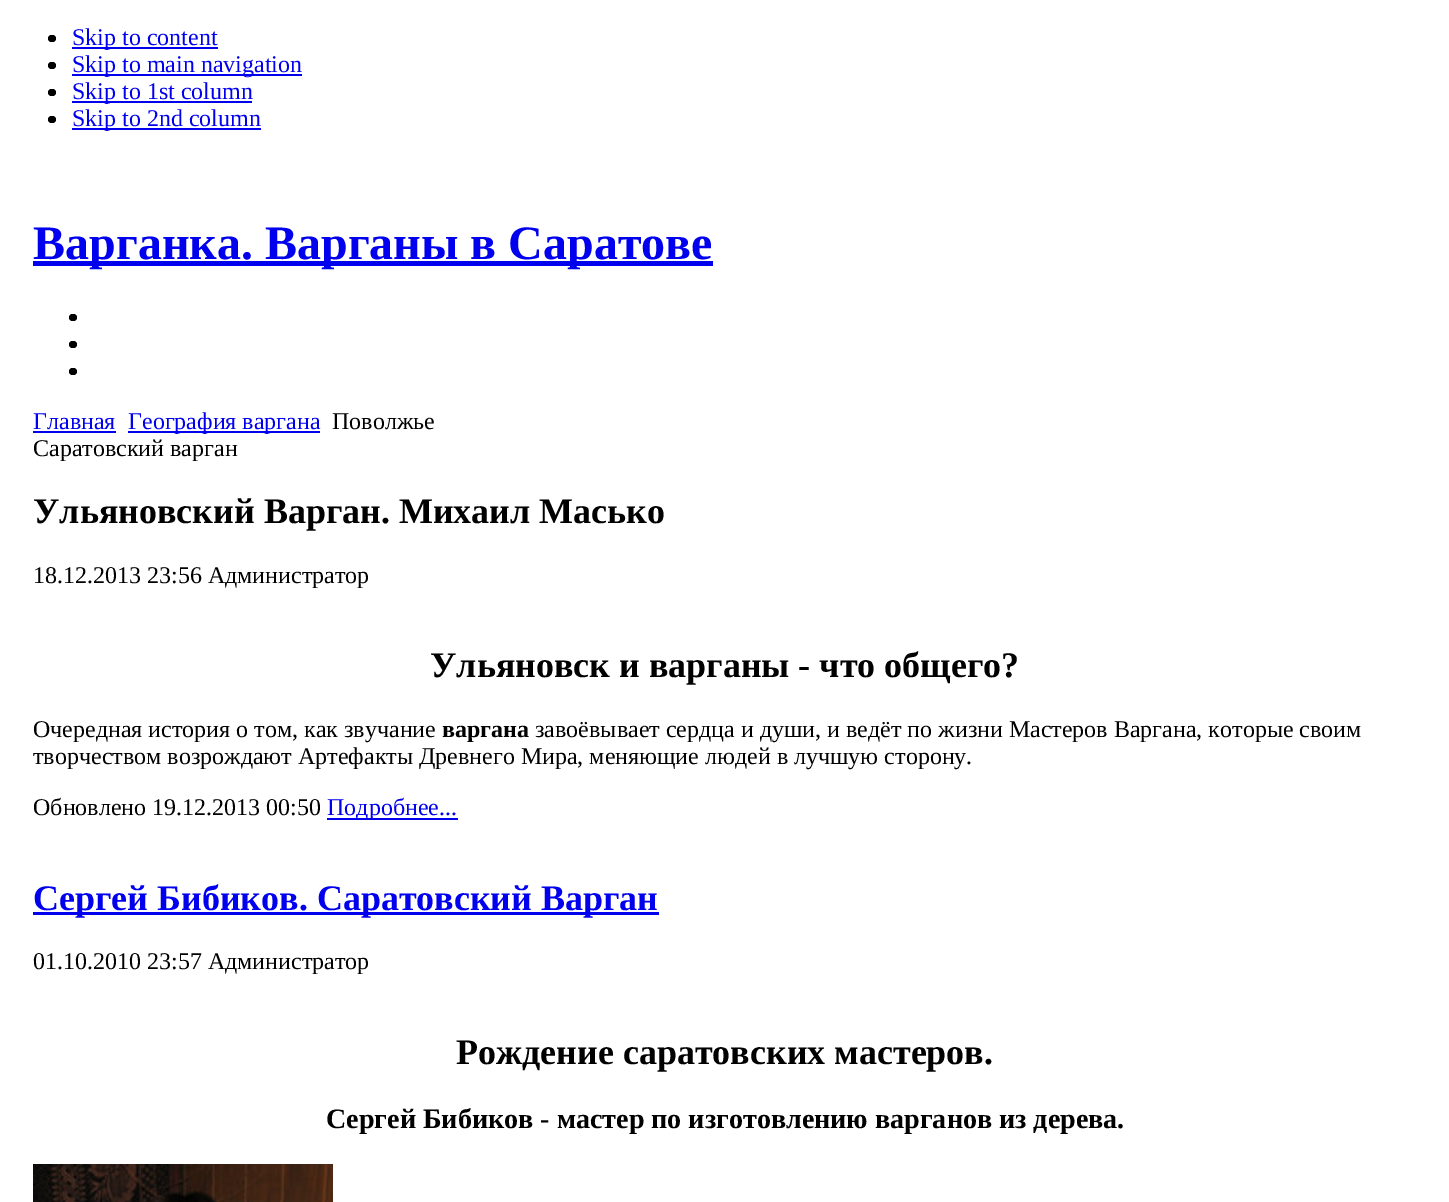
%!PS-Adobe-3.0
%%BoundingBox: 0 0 1449 1202
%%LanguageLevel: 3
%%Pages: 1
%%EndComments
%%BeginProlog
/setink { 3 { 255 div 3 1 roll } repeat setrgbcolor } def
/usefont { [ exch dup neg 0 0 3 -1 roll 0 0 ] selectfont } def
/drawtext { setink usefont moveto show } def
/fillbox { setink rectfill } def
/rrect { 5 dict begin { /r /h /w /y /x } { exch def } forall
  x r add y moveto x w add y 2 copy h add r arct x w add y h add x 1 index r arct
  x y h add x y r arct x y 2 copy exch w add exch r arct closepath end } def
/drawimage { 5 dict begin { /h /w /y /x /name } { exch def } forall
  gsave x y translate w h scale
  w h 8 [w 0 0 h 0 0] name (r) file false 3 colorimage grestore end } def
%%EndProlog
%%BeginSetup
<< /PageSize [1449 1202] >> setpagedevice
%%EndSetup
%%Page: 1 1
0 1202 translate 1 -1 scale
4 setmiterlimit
0 0 1449 1202 255 255 255 fillbox
0 0 0 setink
48 35 8 7 3.5 rrect fill
72 47 146 2 0 0 238 fillbox
(Skip to content) 72 45 /LiberationSerif-Regular 24 0 0 238 drawtext
0 0 0 setink
48 62 8 7 3.5 rrect fill
72 74 230 2 0 0 238 fillbox
(Skip to main navigation) 72 72 /LiberationSerif-Regular 24 0 0 238 drawtext
0 0 0 setink
48 89 8 7 3.5 rrect fill
72 101 180 2 0 0 238 fillbox
(Skip to 1st column) 72 99 /LiberationSerif-Regular 24 0 0 238 drawtext
0 0 0 setink
48 116 8 7 3.5 rrect fill
72 128 189 2 0 0 238 fillbox
(Skip to 2nd column) 72 126 /LiberationSerif-Regular 24 0 0 238 drawtext
33 261 680 5 0 0 238 fillbox
(Варганка. Варганы в Саратове) 33 259 /LiberationSerif-Bold 48 0 0 238 drawtext
0 0 0 setink
69 314 8 7 3.5 rrect fill
69 341 8 7 3.5 rrect fill
69 368 8 7 3.5 rrect fill
(Главная) 33 429 /LiberationSerif-Regular 24 0 0 238 drawtext
33 431 83 2 0 0 238 fillbox
128 431 192 2 0 0 238 fillbox
(География варгана) 128 429 /LiberationSerif-Regular 24 0 0 238 drawtext
(Поволжье) 332 429 /LiberationSerif-Regular 24 0 0 0 drawtext
(Саратовский варган) 33 456 /LiberationSerif-Regular 24 0 0 0 drawtext
(Ульяновский Варган. Михаил Масько) 33 523 /LiberationSerif-Bold 36 0 0 0 drawtext
(18.12.2013 23:56 Администратор) 33 583 /LiberationSerif-Regular 24 0 0 0 drawtext
(Ульяновск и варганы - что общего?) 430 677 /LiberationSerif-Bold 36 0 0 0 drawtext
(Очередная история о том, как звучание) 33 737 /LiberationSerif-Regular 24 0 0 0 drawtext
(варгана) 442 737 /LiberationSerif-Bold 24 0 0 0 drawtext
(завоёвывает сердца и души, и ведёт по жизни Мастеров Варгана, которые своим) 535 737 /LiberationSerif-Regular 24 0 0 0 drawtext
(творчеством возрождают Артефакты Древнего Мира, меняющие людей в лучшую сторону.) 33 764 /LiberationSerif-Regular 24 0 0 0 drawtext
(Обновлено 19.12.2013 00:50) 33 815 /LiberationSerif-Regular 24 0 0 0 drawtext
327 818 131 2 0 0 238 fillbox
(Подробнее...) 327 815 /LiberationSerif-Regular 24 0 0 238 drawtext
33 912 626 3 0 0 238 fillbox
(Сергей Бибиков. Саратовский Варган) 33 910 /LiberationSerif-Bold 36 0 0 238 drawtext
(01.10.2010 23:57 Администратор) 33 969 /LiberationSerif-Regular 24 0 0 0 drawtext
(Рождение саратовских мастеров.) 456 1064 /LiberationSerif-Bold 36 0 0 0 drawtext
(Сергей Бибиков - мастер по изготовлению варганов из дерева.) 326 1128 /LiberationSerif-Bold 28.1 0 0 0 drawtext
(assets/img1.rgb) 33 1164 300 38 drawimage
showpage
%%EOF
